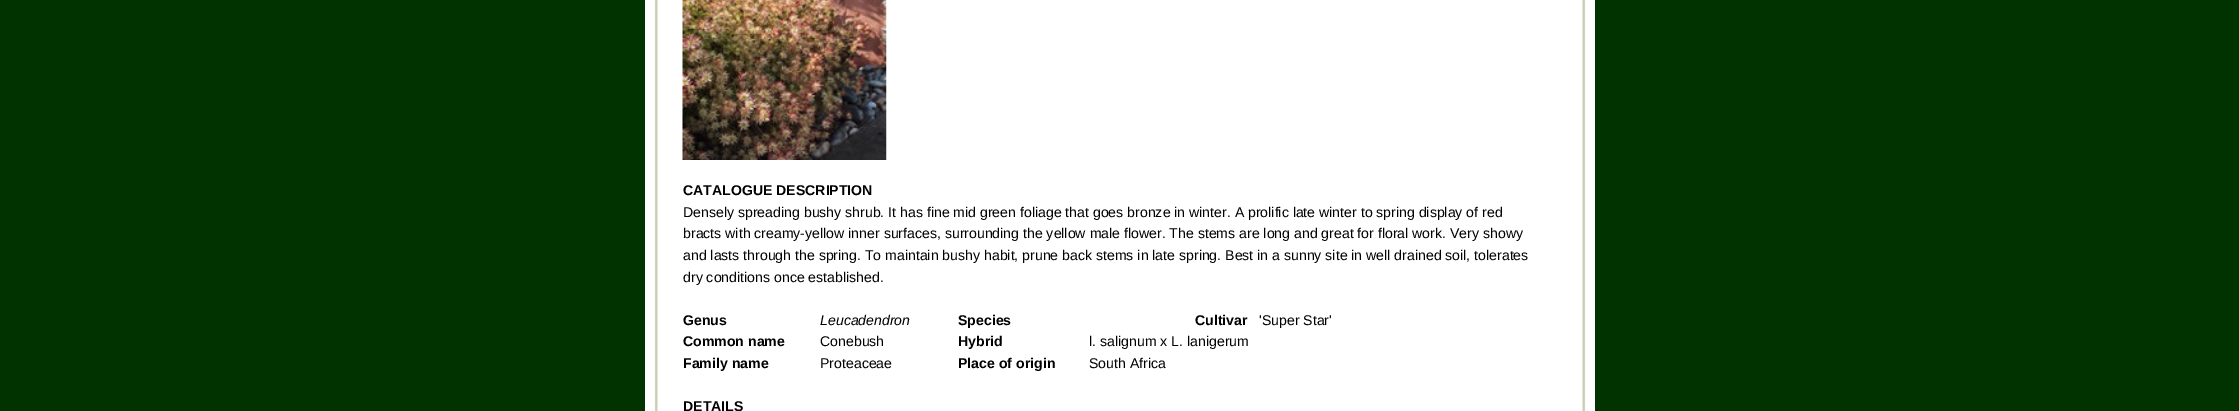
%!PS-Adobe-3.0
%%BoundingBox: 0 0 2239 411
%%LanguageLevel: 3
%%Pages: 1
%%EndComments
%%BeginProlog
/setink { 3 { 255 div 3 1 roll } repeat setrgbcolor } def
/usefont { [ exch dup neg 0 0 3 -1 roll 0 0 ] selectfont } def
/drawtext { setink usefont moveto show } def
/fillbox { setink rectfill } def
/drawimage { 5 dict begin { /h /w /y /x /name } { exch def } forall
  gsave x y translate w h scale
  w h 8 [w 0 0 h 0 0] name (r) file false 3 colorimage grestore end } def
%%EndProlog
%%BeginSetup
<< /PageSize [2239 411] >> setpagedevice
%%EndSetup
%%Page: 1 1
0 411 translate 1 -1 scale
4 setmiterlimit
0 0 2239 411 0 51 0 fillbox
(assets/img1.rgb) 645 0 950 411 drawimage
(assets/img2.rgb) 682 0 205 160 drawimage
(CATALOGUE DESCRIPTION) 683 195 /LiberationSans-Bold 14.1 0 0 0 drawtext
(Densely spreading bushy shrub. It has fine mid green foliage that goes bronze in winter. A prolific late winter to spring display of red) 683 217 /LiberationSans-Regular 14.1 0 0 0 drawtext
(bracts with creamy-yellow inner surfaces, surrounding the yellow male flower. The stems are long and great for floral work. Very showy) 683 238 /LiberationSans-Regular 14.1 0 0 0 drawtext
(and lasts through the spring. To maintain bushy habit, prune back stems in late spring. Best in a sunny site in well drained soil, tolerates) 683 260 /LiberationSans-Regular 14.1 0 0 0 drawtext
(dry conditions once established.) 683 282 /LiberationSans-Regular 14.1 0 0 0 drawtext
(Genus) 683 325 /LiberationSans-Bold 14.1 0 0 0 drawtext
(Leucadendron) 820 325 /LiberationSans-Italic 14.1 0 0 0 drawtext
(Species) 958 325 /LiberationSans-Bold 14.1 0 0 0 drawtext
(Cultivar) 1195 325 /LiberationSans-Bold 14.1 0 0 0 drawtext
('Super Star') 1259 325 /LiberationSans-Regular 14.1 0 0 0 drawtext
(Common name) 683 346 /LiberationSans-Bold 14.1 0 0 0 drawtext
(Conebush) 820 346 /LiberationSans-Regular 14.1 0 0 0 drawtext
(Hybrid) 958 346 /LiberationSans-Bold 14.1 0 0 0 drawtext
(l. salignum x L. lanigerum) 1089 346 /LiberationSans-Regular 14.1 0 0 0 drawtext
(Family name) 683 368 /LiberationSans-Bold 14.1 0 0 0 drawtext
(Proteaceae) 820 368 /LiberationSans-Regular 14.1 0 0 0 drawtext
(Place of origin) 958 368 /LiberationSans-Bold 14.1 0 0 0 drawtext
(South Africa) 1089 368 /LiberationSans-Regular 14.1 0 0 0 drawtext
(DETAILS) 683 411 /LiberationSans-Bold 14.1 0 0 0 drawtext
showpage
%%EOF
